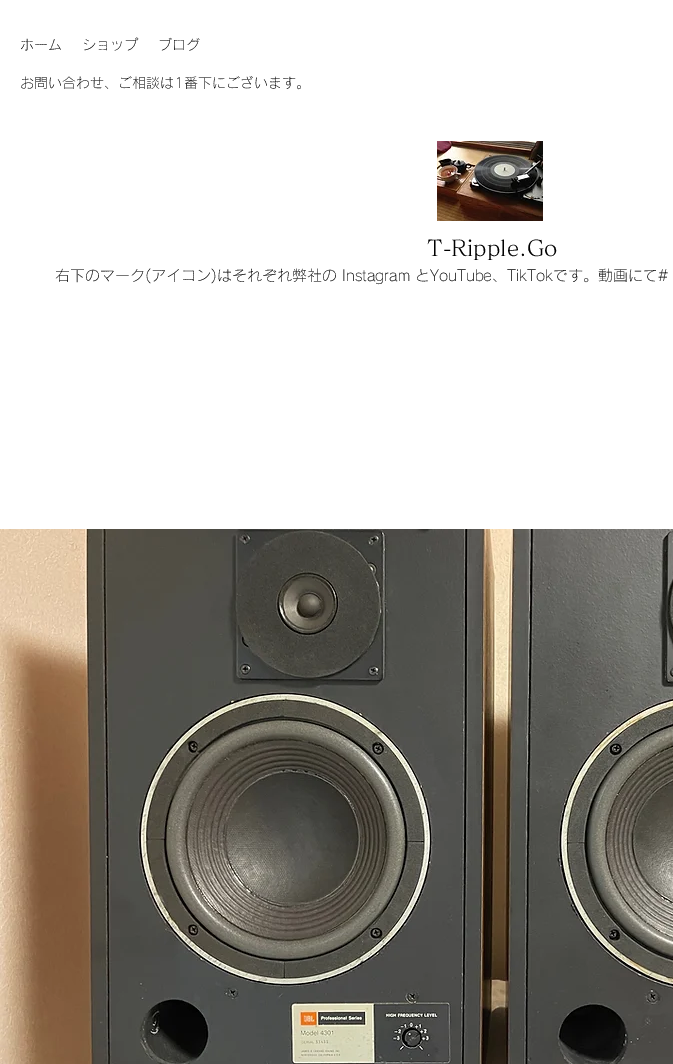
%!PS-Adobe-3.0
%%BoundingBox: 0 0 673 1064
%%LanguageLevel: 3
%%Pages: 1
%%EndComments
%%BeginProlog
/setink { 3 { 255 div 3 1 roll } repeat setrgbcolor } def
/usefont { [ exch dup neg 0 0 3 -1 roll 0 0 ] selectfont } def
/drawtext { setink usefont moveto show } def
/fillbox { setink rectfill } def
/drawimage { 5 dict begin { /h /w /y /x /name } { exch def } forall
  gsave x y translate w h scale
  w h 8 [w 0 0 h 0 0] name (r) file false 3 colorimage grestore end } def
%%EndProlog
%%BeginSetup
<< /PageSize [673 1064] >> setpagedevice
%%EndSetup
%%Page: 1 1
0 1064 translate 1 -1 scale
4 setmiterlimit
0 0 673 1064 255 255 255 fillbox
(ホーム) 20 50 /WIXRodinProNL-Light 14 0 0 0 drawtext
(ショップ) 82 50 /WIXRodinProNL-Light 14 0 0 0 drawtext
(ブログ) 158 50 /WIXRodinProNL-Light 14 0 0 0 drawtext
(お問い合わせ、ご相談は1番下にございます。) 20 88 /WIXRodinProNL-Light 14 0 0 0 drawtext
(assets/img1.rgb) 437 141 106 80 drawimage
(T-Ripple.Go) 427 256 /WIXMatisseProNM-Medium 22 0 0 0 drawtext
(右下のマーク\(アイコン\)はそれぞれ弊社の Instagram とYouTube、TikTokです。動画にて#) 55 281 /WIXRodinProNL-Light 15 0 0 0 drawtext
(assets/img2.rgb) 0 529 673 535 drawimage
showpage
%%EOF
